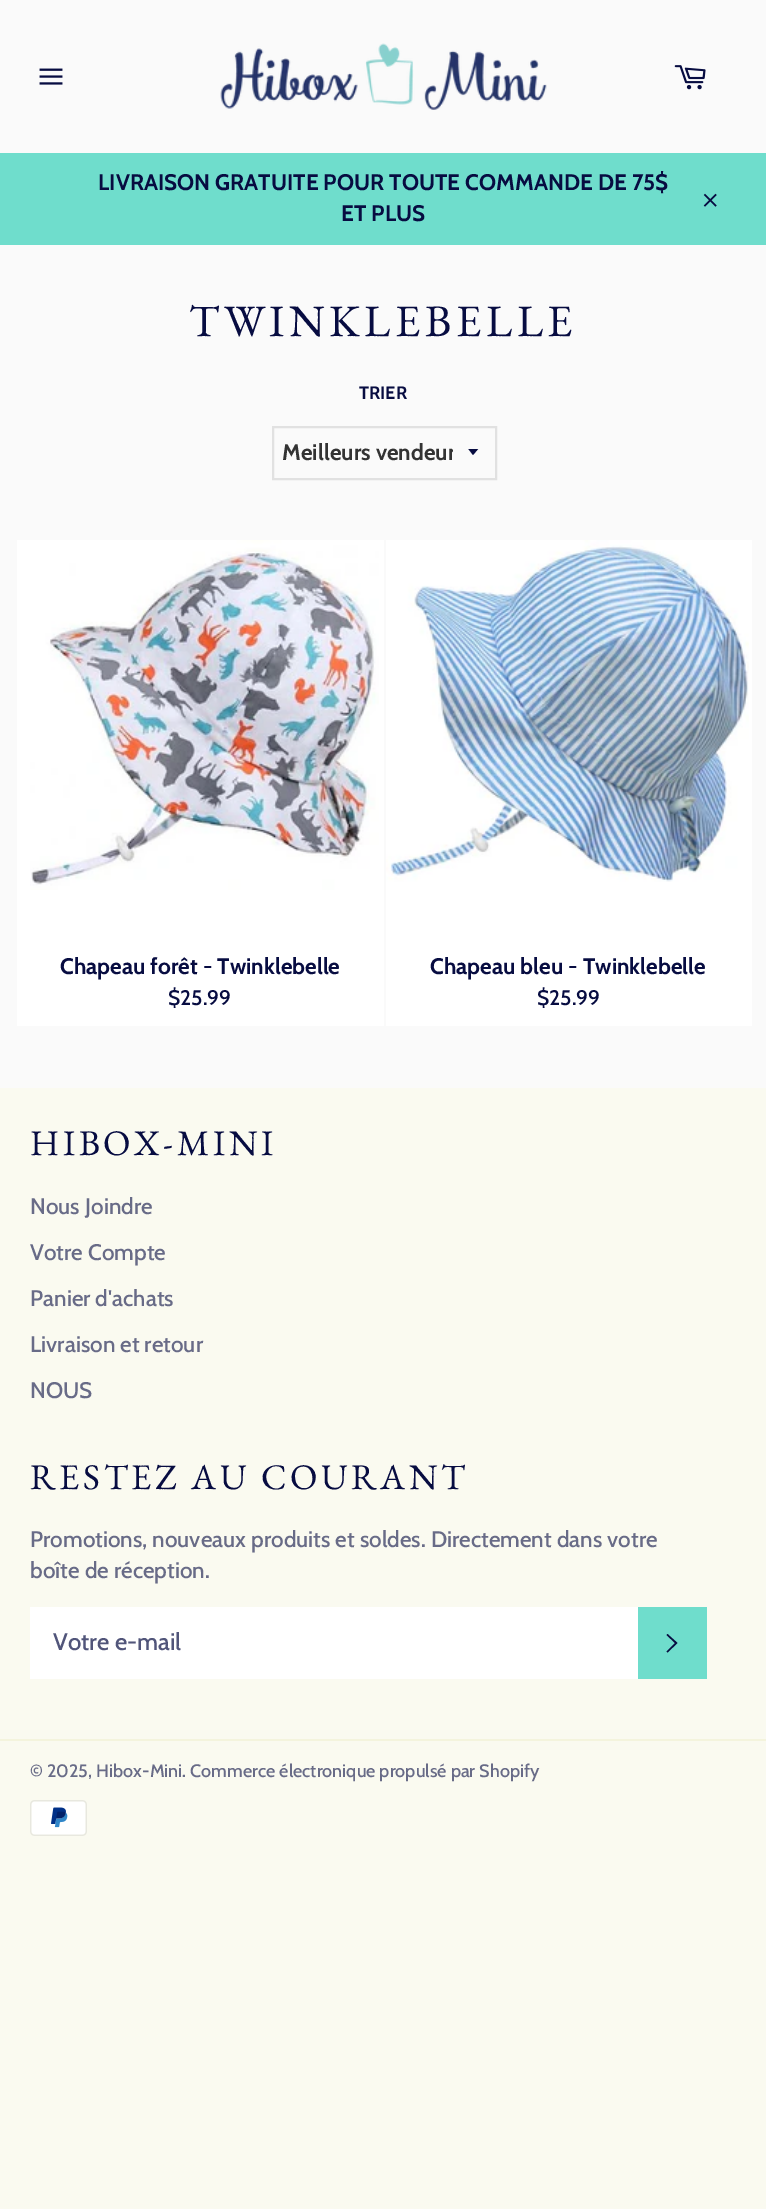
%!PS-Adobe-3.0
%%BoundingBox: 0 0 766 2209
%%LanguageLevel: 3
%%Pages: 1
%%EndComments
%%BeginProlog
/setink { 3 { 255 div 3 1 roll } repeat setrgbcolor } def
/usefont { [ exch dup neg 0 0 3 -1 roll 0 0 ] selectfont } def
/drawtext { setink usefont moveto show } def
/fillbox { setink rectfill } def
/drawimage { 5 dict begin { /h /w /y /x /name } { exch def } forall
  gsave x y translate w h scale
  w h 8 [w 0 0 h 0 0] name (r) file false 3 colorimage grestore end } def
%%EndProlog
%%BeginSetup
<< /PageSize [766 2209] >> setpagedevice
%%EndSetup
%%Page: 1 1
0 2209 translate 1 -1 scale
4 setmiterlimit
0 0 766 2209 250 250 240 fillbox
0 0 766 1088 250 250 250 fillbox
(assets/img1.rgb) 39 68 24 17 drawimage
(assets/img2.rgb) 220 43 327 67 drawimage
(assets/img3.rgb) 674 65 32 25 drawimage
0 153 766 92 111 221 204 fillbox
(LIVRAISON GRATUITE POUR TOUTE COMMANDE DE 75$) 98 190 /Cabin-Bold 22.5 7 12 65 drawtext
(ET PLUS) 341 221 /Cabin-Bold 22.5 7 12 65 drawtext
(assets/img4.rgb) 703 193 14 14 drawimage
/EBGaramond-Regular 45 usefont
189 336 moveto 4.5 0 (TWINKLEBELLE) ashow
(TRIER) 359 399 /Cabin-Bold 18 7 12 65 drawtext
gsave
468 449 12 7 rectclip
468 448.5 moveto 473 455 lineto 478.5 448.5 lineto closepath fill
grestore
225 225 225 setink
2 setlinewidth
273 427 223 52 rectstroke
gsave
282 437 171 31 rectclip
(Meilleurs vendeur) 282 460 /Cabin-Bold 22.5 51 51 51 drawtext
grestore
17 540 367 486 255 255 255 fillbox
(assets/img5.rgb) 30 540 349 350 drawimage
(Chapeau forêt - Twinklebelle) 60 974 /Cabin-Bold 22.5 7 12 65 drawtext
($25.99) 168 1005 /Cabin-Medium 21 7 12 65 drawtext
386 540 366 486 255 255 255 fillbox
(assets/img6.rgb) 386 540 363 342 drawimage
(Chapeau bleu - Twinklebelle) 430 974 /Cabin-Bold 22.5 7 12 65 drawtext
($25.99) 537 1005 /Cabin-Medium 21 7 12 65 drawtext
/EBGaramond-Regular 36 usefont
30 1155 moveto 3.6 0 (HIBOX-MINI) ashow
(Nous Joindre) 30 1214 /Cabin-Medium 22.5 104 107 135 drawtext
(Votre Compte) 30 1260 /Cabin-Medium 22.5 104 107 135 drawtext
(Panier d'achats) 30 1306 /Cabin-Medium 22.5 104 107 135 drawtext
(Livraison et retour) 30 1352 /Cabin-Medium 22.5 104 107 135 drawtext
(NOUS) 30 1398 /Cabin-Medium 22.5 104 107 135 drawtext
/EBGaramond-Regular 36 usefont
7 12 65 setink
30 1489 moveto 3.6 0 (RESTEZ AU COURANT) ashow
(Promotions, nouveaux produits et soldes. Directement dans votre) 30 1547 /Cabin-Medium 22.5 104 107 135 drawtext
(boîte de réception.) 30 1578 /Cabin-Medium 22.5 104 107 135 drawtext
30 1607 608 72 255 255 255 fillbox
(Votre e-mail) 53 1650 /Cabin-Medium 24 81 85 122 drawtext
638 1607 69 72 111 221 204 fillbox
7 12 65 setink
666.5 1635 moveto 667.5 1634 lineto 677.5 1643 lineto 667.5 1652.5 lineto 666.5 1651.5 lineto 675 1643 lineto closepath fill
0 1739 766 2 244 244 221 fillbox
(© 2025, Hibox-Mini. Commerce électronique propulsé par Shopify) 30 1777 /Cabin-Medium 18 104 107 135 drawtext
(assets/img7.rgb) 30 1800 57 36 drawimage
showpage
%%EOF
